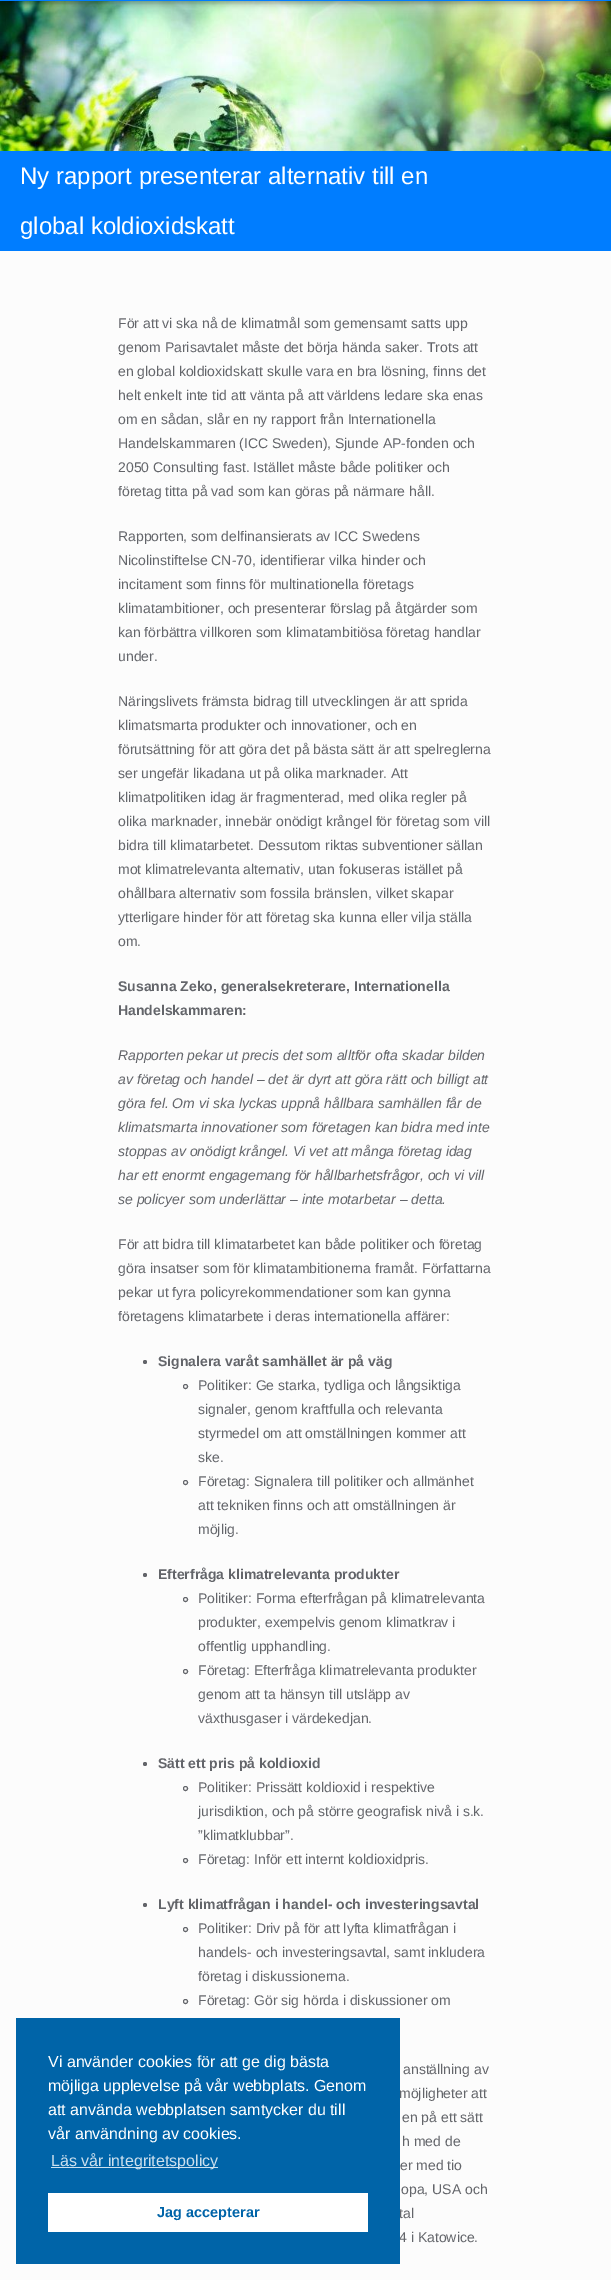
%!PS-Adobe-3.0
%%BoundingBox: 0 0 611 2280
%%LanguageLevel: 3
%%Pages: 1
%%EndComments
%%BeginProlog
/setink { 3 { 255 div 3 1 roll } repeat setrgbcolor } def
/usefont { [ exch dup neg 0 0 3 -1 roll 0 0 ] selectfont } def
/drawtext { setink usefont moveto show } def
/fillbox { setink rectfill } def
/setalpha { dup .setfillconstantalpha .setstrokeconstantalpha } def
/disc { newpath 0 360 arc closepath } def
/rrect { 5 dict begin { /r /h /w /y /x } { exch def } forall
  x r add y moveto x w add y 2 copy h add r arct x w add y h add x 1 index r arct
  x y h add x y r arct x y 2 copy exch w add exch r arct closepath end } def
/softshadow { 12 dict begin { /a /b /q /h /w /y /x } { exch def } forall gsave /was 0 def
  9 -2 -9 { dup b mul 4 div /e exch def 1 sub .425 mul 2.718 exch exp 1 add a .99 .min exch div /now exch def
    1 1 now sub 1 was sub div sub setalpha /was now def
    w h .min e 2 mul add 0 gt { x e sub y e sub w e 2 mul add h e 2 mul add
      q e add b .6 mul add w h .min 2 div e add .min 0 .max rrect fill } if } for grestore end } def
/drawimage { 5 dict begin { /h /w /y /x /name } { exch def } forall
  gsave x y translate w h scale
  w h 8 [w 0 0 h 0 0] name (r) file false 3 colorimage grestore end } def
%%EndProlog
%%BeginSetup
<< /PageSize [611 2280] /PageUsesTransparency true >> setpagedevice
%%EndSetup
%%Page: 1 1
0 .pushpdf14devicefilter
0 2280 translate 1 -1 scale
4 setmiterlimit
0 0 611 2280 252 252 252 fillbox
(assets/img1.rgb) 0 1 611 150 drawimage
0 0 0 setink
0 -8 611 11 0 2.5 0.26 softshadow
0 -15 611 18 0 5 0.16 softshadow
0 0 611 1 0 125 255 fillbox
0 151 611 100 0 125 255 fillbox
(Ny rapport presenterar alternativ till en) 20 184 /LiberationSans-Regular 24 255 255 255 drawtext
(global koldioxidskatt) 20 234 /LiberationSans-Regular 24 255 255 255 drawtext
(För att vi ska nå de klimatmål som gemensamt satts upp) 118 328 /LiberationSans-Regular 14 99 101 106 drawtext
(genom Parisavtalet måste det börja hända saker. Trots att) 118 352 /LiberationSans-Regular 14 99 101 106 drawtext
(en global koldioxidskatt skulle vara en bra lösning, finns det) 118 376 /LiberationSans-Regular 14 99 101 106 drawtext
(helt enkelt inte tid att vänta på att världens ledare ska enas) 118 400 /LiberationSans-Regular 14 99 101 106 drawtext
(om en sådan, slår en ny rapport från Internationella) 118 424 /LiberationSans-Regular 14 99 101 106 drawtext
(Handelskammaren \(ICC Sweden\), Sjunde AP-fonden och) 118 448 /LiberationSans-Regular 14 99 101 106 drawtext
(2050 Consulting fast. Istället måste både politiker och) 118 472 /LiberationSans-Regular 14 99 101 106 drawtext
(företag titta på vad som kan göras på närmare håll.) 118 496 /LiberationSans-Regular 14 99 101 106 drawtext
(Rapporten, som delfinansierats av ICC Swedens) 118 541 /LiberationSans-Regular 14 99 101 106 drawtext
(Nicolinstiftelse CN-70, identifierar vilka hinder och) 118 565 /LiberationSans-Regular 14 99 101 106 drawtext
(incitament som finns för multinationella företags) 118 589 /LiberationSans-Regular 14 99 101 106 drawtext
(klimatambitioner, och presenterar förslag på åtgärder som) 118 613 /LiberationSans-Regular 14 99 101 106 drawtext
(kan förbättra villkoren som klimatambitiösa företag handlar) 118 637 /LiberationSans-Regular 14 99 101 106 drawtext
(under.) 118 661 /LiberationSans-Regular 14 99 101 106 drawtext
(Näringslivets främsta bidrag till utvecklingen är att sprida) 118 706 /LiberationSans-Regular 14 99 101 106 drawtext
(klimatsmarta produkter och innovationer, och en) 118 730 /LiberationSans-Regular 14 99 101 106 drawtext
(förutsättning för att göra det på bästa sätt är att spelreglerna) 118 754 /LiberationSans-Regular 14 99 101 106 drawtext
(ser ungefär likadana ut på olika marknader. Att) 118 778 /LiberationSans-Regular 14 99 101 106 drawtext
(klimatpolitiken idag är fragmenterad, med olika regler på) 118 802 /LiberationSans-Regular 14 99 101 106 drawtext
(olika marknader, innebär onödigt krångel för företag som vill) 118 826 /LiberationSans-Regular 14 99 101 106 drawtext
(bidra till klimatarbetet. Dessutom riktas subventioner sällan) 118 850 /LiberationSans-Regular 14 99 101 106 drawtext
(mot klimatrelevanta alternativ, utan fokuseras istället på) 118 874 /LiberationSans-Regular 14 99 101 106 drawtext
(ohållbara alternativ som fossila bränslen, vilket skapar) 118 898 /LiberationSans-Regular 14 99 101 106 drawtext
(ytterligare hinder för att företag ska kunna eller vilja ställa) 118 922 /LiberationSans-Regular 14 99 101 106 drawtext
(om.) 118 946 /LiberationSans-Regular 14 99 101 106 drawtext
(Susanna Zeko, generalsekreterare, Internationella) 118 991 /LiberationSans-Bold 14 99 101 106 drawtext
(Handelskammaren:) 118 1015 /LiberationSans-Bold 14 99 101 106 drawtext
(Rapporten pekar ut precis det som alltför ofta skadar bilden) 118 1060 /LiberationSans-Italic 14 99 101 106 drawtext
(av företag och handel – det är dyrt att göra rätt och billigt att) 118 1084 /LiberationSans-Italic 14 99 101 106 drawtext
(göra fel. Om vi ska lyckas uppnå hållbara samhällen får de) 118 1108 /LiberationSans-Italic 14 99 101 106 drawtext
(klimatsmarta innovationer som företagen kan bidra med inte) 118 1132 /LiberationSans-Italic 14 99 101 106 drawtext
(stoppas av onödigt krångel. Vi vet att många företag idag) 118 1156 /LiberationSans-Italic 14 99 101 106 drawtext
(har ett enormt engagemang för hållbarhetsfrågor, och vi vill) 118 1180 /LiberationSans-Italic 14 99 101 106 drawtext
(se policyer som underlättar – inte motarbetar – detta.) 118 1204 /LiberationSans-Italic 14 99 101 106 drawtext
(För att bidra till klimatarbetet kan både politiker och företag) 118 1249 /LiberationSans-Regular 14 99 101 106 drawtext
(göra insatser som för klimatambitionerna framåt. Författarna) 118 1273 /LiberationSans-Regular 14 99 101 106 drawtext
(pekar ut fyra policyrekommendationer som kan gynna) 118 1297 /LiberationSans-Regular 14 99 101 106 drawtext
(företagens klimatarbete i deras internationella affärer:) 118 1321 /LiberationSans-Regular 14 99 101 106 drawtext
145 1362 2 disc fill
(Signalera varåt samhället är på väg) 158 1366 /LiberationSans-Bold 14 99 101 106 drawtext
185.5 1386.5 2 disc stroke
(Politiker: Ge starka, tydliga och långsiktiga) 198 1390 /LiberationSans-Regular 14 99 101 106 drawtext
(signaler, genom kraftfulla och relevanta) 198 1414 /LiberationSans-Regular 14 99 101 106 drawtext
(styrmedel om att omställningen kommer att) 198 1438 /LiberationSans-Regular 14 99 101 106 drawtext
(ske.) 198 1462 /LiberationSans-Regular 14 99 101 106 drawtext
185.5 1482.5 2 disc stroke
(Företag: Signalera till politiker och allmänhet) 198 1486 /LiberationSans-Regular 14 99 101 106 drawtext
(att tekniken finns och att omställningen är) 198 1510 /LiberationSans-Regular 14 99 101 106 drawtext
(möjlig.) 198 1534 /LiberationSans-Regular 14 99 101 106 drawtext
145 1575 2 disc fill
(Efterfråga klimatrelevanta produkter) 158 1579 /LiberationSans-Bold 14 99 101 106 drawtext
185.5 1599.5 2 disc stroke
(Politiker: Forma efterfrågan på klimatrelevanta) 198 1603 /LiberationSans-Regular 14 99 101 106 drawtext
(produkter, exempelvis genom klimatkrav i) 198 1627 /LiberationSans-Regular 14 99 101 106 drawtext
(offentlig upphandling.) 198 1651 /LiberationSans-Regular 14 99 101 106 drawtext
185.5 1671.5 2 disc stroke
(Företag: Efterfråga klimatrelevanta produkter) 198 1675 /LiberationSans-Regular 14 99 101 106 drawtext
(genom att ta hänsyn till utsläpp av) 198 1699 /LiberationSans-Regular 14 99 101 106 drawtext
(växthusgaser i värdekedjan.) 198 1723 /LiberationSans-Regular 14 99 101 106 drawtext
145 1764 2 disc fill
(Sätt ett pris på koldioxid) 158 1768 /LiberationSans-Bold 14 99 101 106 drawtext
185.5 1788.5 2 disc stroke
(Politiker: Prissätt koldioxid i respektive) 198 1792 /LiberationSans-Regular 14 99 101 106 drawtext
(jurisdiktion, och på större geografisk nivå i s.k.) 198 1816 /LiberationSans-Regular 14 99 101 106 drawtext
(”klimatklubbar”.) 198 1840 /LiberationSans-Regular 14 99 101 106 drawtext
185.5 1860.5 2 disc stroke
(Företag: Inför ett internt koldioxidpris.) 198 1864 /LiberationSans-Regular 14 99 101 106 drawtext
145 1905 2 disc fill
(Lyft klimatfrågan i handel- och investeringsavtal) 158 1909 /LiberationSans-Bold 14 99 101 106 drawtext
185.5 1929.5 2 disc stroke
(Politiker: Driv på för att lyfta klimatfrågan i) 198 1933 /LiberationSans-Regular 14 99 101 106 drawtext
(handels- och investeringsavtal, samt inkludera) 198 1957 /LiberationSans-Regular 14 99 101 106 drawtext
(företag i diskussionerna.) 198 1981 /LiberationSans-Regular 14 99 101 106 drawtext
185.5 2001.5 2 disc stroke
(Företag: Gör sig hörda i diskussioner om) 198 2005 /LiberationSans-Regular 14 99 101 106 drawtext
(anställning av) 403 2074 /LiberationSans-Regular 14 99 101 106 drawtext
(möjligheter att) 399 2098 /LiberationSans-Regular 14 99 101 106 drawtext
(en på ett sätt) 402 2122 /LiberationSans-Regular 14 99 101 106 drawtext
(h med de) 402 2146 /LiberationSans-Regular 14 99 101 106 drawtext
(er med tio) 400 2170 /LiberationSans-Regular 14 99 101 106 drawtext
(opa, USA och) 401 2194 /LiberationSans-Regular 14 99 101 106 drawtext
(tal) 399 2218 /LiberationSans-Regular 14 99 101 106 drawtext
(4 i Katowice.) 399 2242 /LiberationSans-Regular 14 99 101 106 drawtext
16 2018 384 246 0 100 168 fillbox
(Vi använder cookies för att ge dig bästa) 48 2067 /LiberationSans-Regular 16 255 255 255 drawtext
(möjliga upplevelse på vår webbplats. Genom) 48 2091 /LiberationSans-Regular 16 255 255 255 drawtext
(att använda webbplatsen samtycker du till) 48 2115 /LiberationSans-Regular 16 255 255 255 drawtext
(vår användning av cookies.) 48 2139 /LiberationSans-Regular 16 255 255 255 drawtext
51 2167 167 1 204 224 238 fillbox
(Läs vår integritetspolicy) 51 2166 /LiberationSans-Regular 16 204 224 238 drawtext
48 2193 320 39 255 255 255 fillbox
(Jag accepterar) 157 2217 /LiberationSans-Bold 14.5 0 100 168 drawtext
.poppdf14devicefilter showpage
%%EOF
